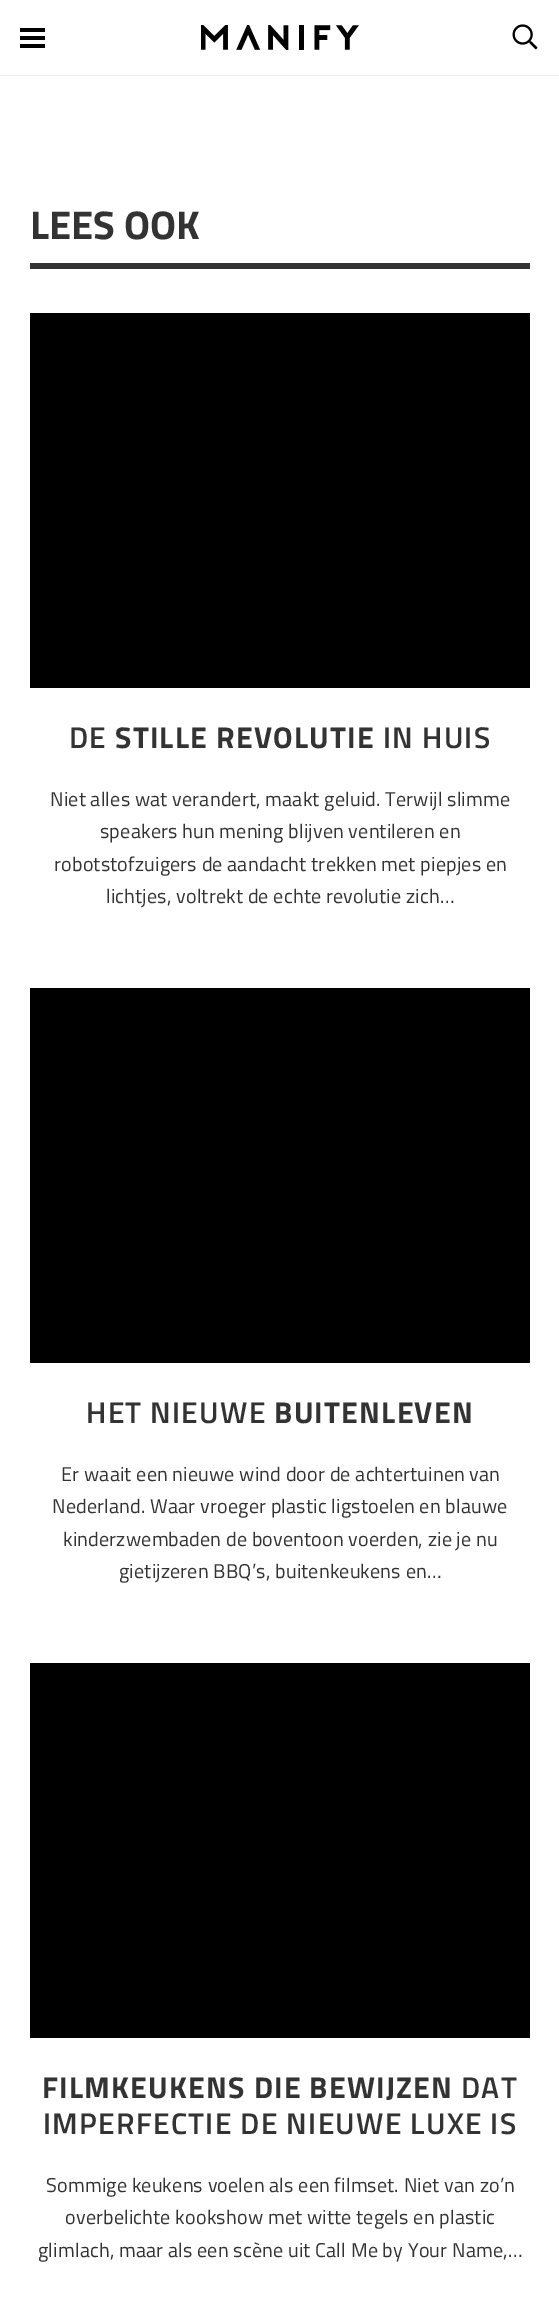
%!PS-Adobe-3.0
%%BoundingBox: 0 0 559 2311
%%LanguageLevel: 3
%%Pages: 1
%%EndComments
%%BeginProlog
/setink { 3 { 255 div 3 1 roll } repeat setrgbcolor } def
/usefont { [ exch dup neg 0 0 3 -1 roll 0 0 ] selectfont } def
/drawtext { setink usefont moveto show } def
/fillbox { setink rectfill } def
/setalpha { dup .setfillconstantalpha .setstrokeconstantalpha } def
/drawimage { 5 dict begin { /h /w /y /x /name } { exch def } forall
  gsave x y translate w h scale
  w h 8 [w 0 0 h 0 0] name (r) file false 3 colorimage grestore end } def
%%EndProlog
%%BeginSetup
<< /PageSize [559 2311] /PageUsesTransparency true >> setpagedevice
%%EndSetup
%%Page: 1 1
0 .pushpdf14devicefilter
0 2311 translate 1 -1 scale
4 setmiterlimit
0 0 559 2311 255 255 255 fillbox
0.08 setalpha
0 75 559 1 0 0 0 fillbox
1 setalpha
20 36 25 4 0 0 0 fillbox
20 28 25 4 0 0 0 fillbox
20 44 25 4 0 0 0 fillbox
(assets/img1.rgb) 201 25 158 25 drawimage
(assets/img2.rgb) 512 24 26 26 drawimage
(LEES OOK) 30 239 /TitilliumWeb-Bold 40 51 51 51 drawtext
30 263 500 6 51 51 51 fillbox
30 313 500 375 0 0 0 fillbox
/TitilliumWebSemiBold-SemiBold 30 usefont
51 51 51 setink
69 748 moveto 1.25 0 (DE) ashow
/TitilliumWeb-Bold 30 usefont
115 748 moveto 1.25 0 (STILLE REVOLUTIE) ashow
/TitilliumWebSemiBold-SemiBold 30 usefont
383 748 moveto 1.25 0 (IN HUIS) ashow
/TitilliumWeb-Regular 20 usefont
50 806 moveto 0.2 0 (Niet alles wat verandert, maakt geluid. Terwijl slimme) ashow
100 838 moveto 0.2 0 (speakers hun mening blijven ventileren en) ashow
54 871 moveto 0.2 0 (robotstofzuigers de aandacht trekken met piepjes en) ashow
106 903 moveto 0.2 0 (lichtjes, voltrekt de echte revolutie zich…) ashow
30 988 500 375 0 0 0 fillbox
/TitilliumWebSemiBold-SemiBold 30 usefont
51 51 51 setink
86 1423 moveto 1.25 0 (HET NIEUWE) ashow
/TitilliumWeb-Bold 30 usefont
274 1423 moveto 1.25 0 (BUITENLEVEN) ashow
/TitilliumWeb-Regular 20 usefont
61 1481 moveto 0.2 0 (Er waait een nieuwe wind door de achtertuinen van) ashow
52 1513 moveto 0.2 0 (Nederland. Waar vroeger plastic ligstoelen en blauwe) ashow
63 1546 moveto 0.2 0 (kinderzwembaden de boventoon voerden, zie je nu) ashow
119 1578 moveto 0.2 0 (gietijzeren BBQ’s, buitenkeukens en…) ashow
30 1663 500 375 0 0 0 fillbox
/TitilliumWeb-Bold 30 usefont
51 51 51 setink
42 2098 moveto 1.25 0 (FILMKEUKENS DIE BEWIJZEN) ashow
/TitilliumWebSemiBold-SemiBold 30 usefont
461 2098 moveto 1.25 0 (DAT) ashow
43 2134 moveto 1.25 0 (IMPERFECTIE DE NIEUWE LUXE IS) ashow
/TitilliumWeb-Regular 20 usefont
46 2192 moveto 0.2 0 (Sommige keukens voelen als een filmset. Niet van zo’n) ashow
65 2224 moveto 0.2 0 (overbelichte kookshow met witte tegels en plastic) ashow
38 2257 moveto 0.2 0 (glimlach, maar als een scène uit Call Me by Your Name,…) ashow
.poppdf14devicefilter showpage
%%EOF
